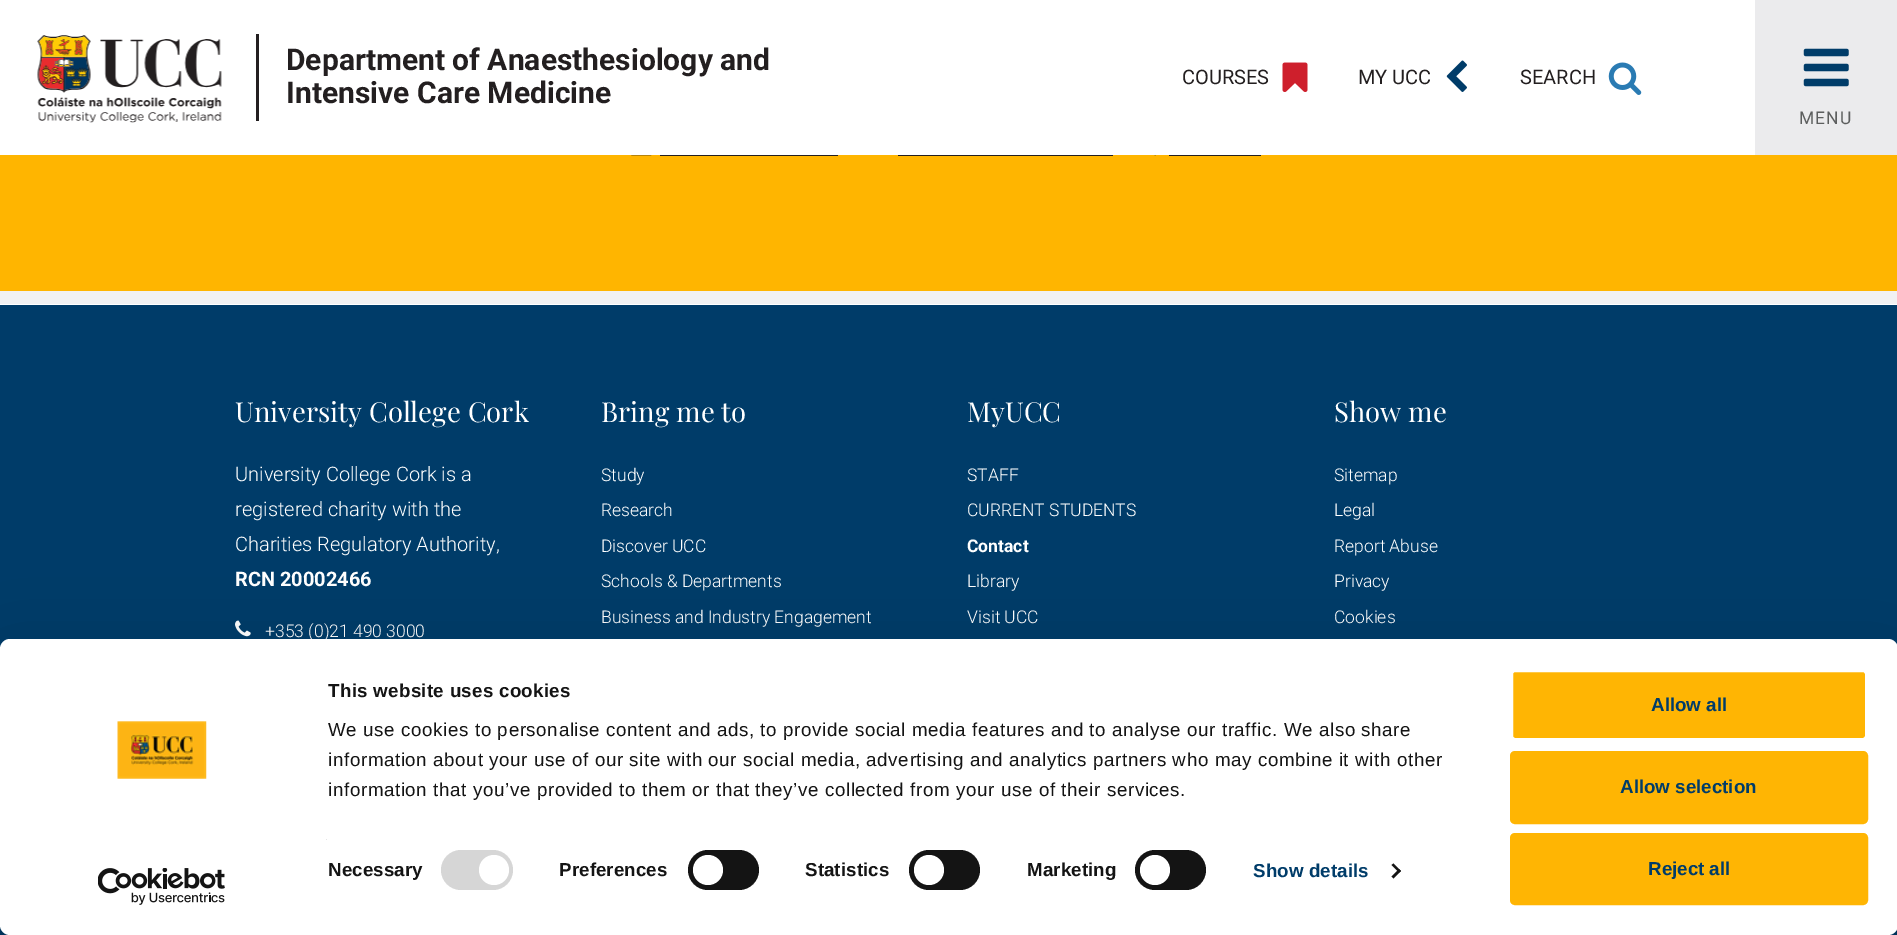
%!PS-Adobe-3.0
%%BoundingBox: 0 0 1897 935
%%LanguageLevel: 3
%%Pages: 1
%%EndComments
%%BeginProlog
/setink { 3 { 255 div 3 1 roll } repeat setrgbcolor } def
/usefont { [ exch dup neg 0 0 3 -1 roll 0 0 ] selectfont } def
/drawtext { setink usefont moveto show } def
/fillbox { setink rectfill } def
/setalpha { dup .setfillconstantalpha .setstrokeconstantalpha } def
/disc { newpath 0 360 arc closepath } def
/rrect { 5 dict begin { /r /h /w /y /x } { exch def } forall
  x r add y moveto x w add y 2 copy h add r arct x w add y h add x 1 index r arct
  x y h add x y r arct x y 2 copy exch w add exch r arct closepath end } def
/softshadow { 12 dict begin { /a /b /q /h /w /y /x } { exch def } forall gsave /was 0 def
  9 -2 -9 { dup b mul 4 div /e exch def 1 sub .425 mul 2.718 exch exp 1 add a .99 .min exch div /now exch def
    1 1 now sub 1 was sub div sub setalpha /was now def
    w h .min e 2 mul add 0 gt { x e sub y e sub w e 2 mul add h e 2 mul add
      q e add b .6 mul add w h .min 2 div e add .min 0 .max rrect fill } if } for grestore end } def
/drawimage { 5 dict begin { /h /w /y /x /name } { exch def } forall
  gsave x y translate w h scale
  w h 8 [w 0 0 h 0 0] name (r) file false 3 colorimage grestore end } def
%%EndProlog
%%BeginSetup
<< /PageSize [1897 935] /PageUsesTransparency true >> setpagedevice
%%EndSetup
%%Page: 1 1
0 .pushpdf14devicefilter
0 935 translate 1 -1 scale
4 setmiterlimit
0 0 1897 935 241 241 242 fillbox
0 0 1755 155 255 255 255 fillbox
(assets/img1.rgb) 37 35 185 88 drawimage
256 34 3 87 35 31 32 fillbox
(Department of Anaesthesiology and) 286 70 /Roboto-Bold 30 35 31 32 drawtext
(Intensive Care Medicine) 286 103 /Roboto-Bold 30 35 31 32 drawtext
(COURSES) 1182 84 /Roboto-Regular 20 35 31 32 drawtext
(assets/img2.rgb) 1282 62 26 30 drawimage
(MY UCC) 1358 84 /Roboto-Regular 20 35 31 32 drawtext
(assets/img3.rgb) 1446 60 21 32 drawimage
(SEARCH) 1520 84 /Roboto-Regular 20 35 31 32 drawtext
(assets/img4.rgb) 1608 62 34 33 drawimage
1755 0 142 155 235 235 237 fillbox
(assets/img5.rgb) 1803 48 46 39 drawimage
/Roboto-Regular 17.5 usefont
92 94 94 setink
1799 124 moveto 1 0 (MENU) ashow
0 155 1897 136 255 181 0 fillbox
(assets/img6.rgb) 631 155 21 1 drawimage
660 155 178 1 35 31 32 fillbox
898 155 215 1 35 31 32 fillbox
(assets/img7.rgb) 1154 155 2 1 drawimage
1169 155 92 1 35 31 32 fillbox
0 305 1897 630 0 60 105 fillbox
0 304 1897 1 255 255 255 fillbox
(University College Cork) 235 422 /PlayfairDisplay-Regular 27.5 255 255 255 drawtext
(University College Cork is a) 235 481 /Roboto-Light 20 255 255 255 drawtext
(registered charity with the) 235 516 /Roboto-Light 20 255 255 255 drawtext
(Charities Regulatory Authority,) 235 551 /Roboto-Light 20 255 255 255 drawtext
(RCN 20002466) 235 586 /Roboto-Bold 20 255 255 255 drawtext
(assets/img8.rgb) 235 620 16 17 drawimage
(+353 \(0\)21 490 3000) 265 637 /Roboto-Light 17.5 255 255 255 drawtext
(Bring me to) 601 422 /PlayfairDisplay-Regular 27.5 255 255 255 drawtext
(Study) 601 481 /Roboto-Light 17.5 255 255 255 drawtext
(Research) 601 516 /Roboto-Light 17.5 255 255 255 drawtext
(Discover UCC) 601 552 /Roboto-Light 17.5 255 255 255 drawtext
(Schools & Departments) 601 587 /Roboto-Light 17.5 255 255 255 drawtext
(Business and Industry Engagement) 601 623 /Roboto-Light 17.5 255 255 255 drawtext
(MyUCC) 967 422 /PlayfairDisplay-Regular 27.5 255 255 255 drawtext
(STAFF) 967 481 /Roboto-Light 17.5 255 255 255 drawtext
(CURRENT STUDENTS) 967 516 /Roboto-Light 17.5 255 255 255 drawtext
(Contact) 967 552 /Roboto-Bold 17.5 255 255 255 drawtext
(Library) 967 587 /Roboto-Light 17.5 255 255 255 drawtext
(Visit UCC) 967 623 /Roboto-Light 17.5 255 255 255 drawtext
(Show me) 1334 422 /PlayfairDisplay-Regular 27.5 255 255 255 drawtext
(Sitemap) 1334 481 /Roboto-Light 17.5 255 255 255 drawtext
(Legal) 1334 516 /Roboto-Light 17.5 255 255 255 drawtext
(Report Abuse) 1334 552 /Roboto-Light 17.5 255 255 255 drawtext
(Privacy) 1334 587 /Roboto-Light 17.5 255 255 255 drawtext
(Cookies) 1334 623 /Roboto-Light 17.5 255 255 255 drawtext
0 0 0 setink
0 676 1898 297 10 44 0.3 softshadow
255 255 255 setink
0 639 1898 296 10 rrect fill
(assets/img9.rgb) 117 721 90 58 drawimage
(assets/img10.rgb) 98 868 127 37 drawimage
/LiberationSans-Bold 18.75 usefont
20 20 20 setink
328 697 moveto 0.3 0 (This website uses cookies) ashow
/LiberationSans-Regular 18.75 usefont
328 736 moveto 0.62 0 (We use cookies to personalise content and ads, to provide social media features and to analyse our traffic. We also share) ashow
328 766 moveto 0.62 0 (information about your use of our site with our social media, advertising and analytics partners who may combine it with other) ashow
328 796 moveto 0.62 0 (information that you’ve provided to them or that they’ve collected from your use of their services.) ashow
326 839 1 1 229 229 229 fillbox
/LiberationSans-Bold 18.75 usefont
20 20 20 setink
328 876 moveto 0.1 0 (Necessary) ashow
214 214 214 setink
441 850 72 40 20 rrect fill
255 255 255 setink
494 870 15 disc fill
20 20 20 setink
559 876 moveto 0.1 0 (Preferences) ashow
688 850 71 40 20 rrect fill
255 255 255 setink
708 870 15 disc fill
20 20 20 setink
805 876 moveto 0.1 0 (Statistics) ashow
909 850 71 40 20 rrect fill
255 255 255 setink
929 870 15 disc fill
20 20 20 setink
1027 876 moveto 0.1 0 (Marketing) ashow
1135 850 71 40 20 rrect fill
255 255 255 setink
1155 870 15 disc fill
0 60 105 setink
1253 877 moveto 0.1 0 (Show details) ashow
20 20 20 setink
1393.5 863.5 moveto 1401 871 lineto 1399 872.5 lineto 1391.5 865 lineto closepath fill
1399 869 moveto 1401 871 lineto 1393.5 878.5 lineto 1391.5 876.5 lineto closepath fill
255 181 3 setink
1511.5 670.5 355 69 3.5 rrect gsave fill grestore
255 255 255 setink
3 setlinewidth
stroke
(Allow all) 1651 711 /LiberationSans-Bold 18.75 0 60 105 drawtext
255 181 3 setink
1511.5 752.5 355 70 3.5 rrect gsave fill grestore
stroke
(Allow selection) 1620 793 /LiberationSans-Bold 18.75 0 60 105 drawtext
255 181 3 setink
1511.5 834.5 355 69 3.5 rrect gsave fill grestore
stroke
(Reject all) 1648 875 /LiberationSans-Bold 18.75 0 60 105 drawtext
.poppdf14devicefilter showpage
%%EOF
